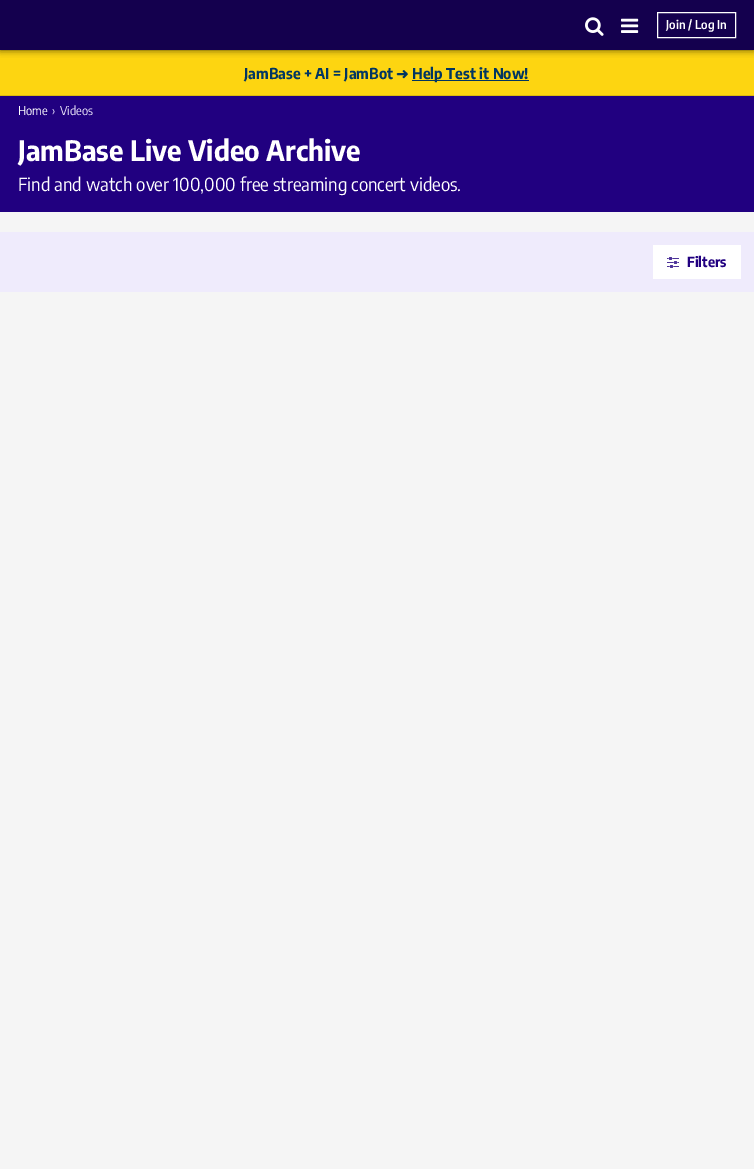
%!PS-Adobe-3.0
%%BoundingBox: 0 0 754 1169
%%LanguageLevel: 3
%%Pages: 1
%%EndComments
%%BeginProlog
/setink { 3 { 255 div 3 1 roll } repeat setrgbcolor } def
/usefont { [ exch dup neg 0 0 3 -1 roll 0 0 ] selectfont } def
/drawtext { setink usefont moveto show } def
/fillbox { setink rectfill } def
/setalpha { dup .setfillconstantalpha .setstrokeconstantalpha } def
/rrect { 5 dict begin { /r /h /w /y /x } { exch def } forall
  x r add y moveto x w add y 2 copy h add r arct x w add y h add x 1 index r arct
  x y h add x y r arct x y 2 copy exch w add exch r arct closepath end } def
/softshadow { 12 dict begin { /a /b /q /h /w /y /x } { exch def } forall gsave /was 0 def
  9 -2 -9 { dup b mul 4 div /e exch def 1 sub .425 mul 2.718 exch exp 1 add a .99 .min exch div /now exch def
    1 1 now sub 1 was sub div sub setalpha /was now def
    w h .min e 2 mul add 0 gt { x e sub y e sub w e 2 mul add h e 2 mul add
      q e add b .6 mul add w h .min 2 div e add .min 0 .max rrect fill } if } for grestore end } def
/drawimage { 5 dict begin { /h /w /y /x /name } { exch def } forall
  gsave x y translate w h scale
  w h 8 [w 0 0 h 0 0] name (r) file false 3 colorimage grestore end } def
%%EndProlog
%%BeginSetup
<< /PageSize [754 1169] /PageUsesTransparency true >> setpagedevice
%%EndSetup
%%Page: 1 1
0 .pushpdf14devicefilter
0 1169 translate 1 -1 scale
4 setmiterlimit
0 0 754 1169 253 213 17 fillbox
0 0 0 setink
0 0 754 50 0 3.5 0.66 softshadow
0 0 754 50 20 0 78 fillbox
(assets/img1.rgb) 585 17 19 19 drawimage
(assets/img2.rgb) 621 18 18 15 drawimage
255 255 255 setink
657.5 12.5 78 25 rectstroke
(Join / Log In) 666 29 /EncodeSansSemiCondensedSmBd-SemiBold 12 255 255 255 drawtext
0 95 754 1 221 186 15 fillbox
(JamBase + AI = JamBot) 244 79 /EncodeSansSemiCondensed-Bold 15 1 54 98 drawtext
(➜) 396 79 /DejaVuSans-Bold 15 1 54 98 drawtext
412 80 117 1 1 54 98 fillbox
(Help Test it Now!) 412 79 /EncodeSansSemiCondensed-Bold 15 1 54 98 drawtext
0 212 754 957 245 245 245 fillbox
0 96 754 116 33 0 128 fillbox
(Home) 18 115 /EncodeSansSemiCondensed-Regular 12 255 255 255 drawtext
(›) 52 115 /EncodeSansSemiCondensed-Regular 12 224 215 249 drawtext
(Videos) 60 115 /EncodeSansSemiCondensed-Regular 12 239 235 252 drawtext
(JamBase Live Video Archive) 18 161 /EncodeSansSemiCondensed-Bold 28 255 255 255 drawtext
(Find and watch over 100,000 free streaming concert videos.) 18 191 /EncodeSansSemiCondensed-Regular 18 255 255 255 drawtext
0 232 754 60 239 235 252 fillbox
653 245 88 34 255 255 255 fillbox
(assets/img3.rgb) 667 257 12 11 drawimage
(Filters) 687 267 /EncodeSansSemiCondensed-Bold 14 33 0 128 drawtext
.poppdf14devicefilter showpage
%%EOF
